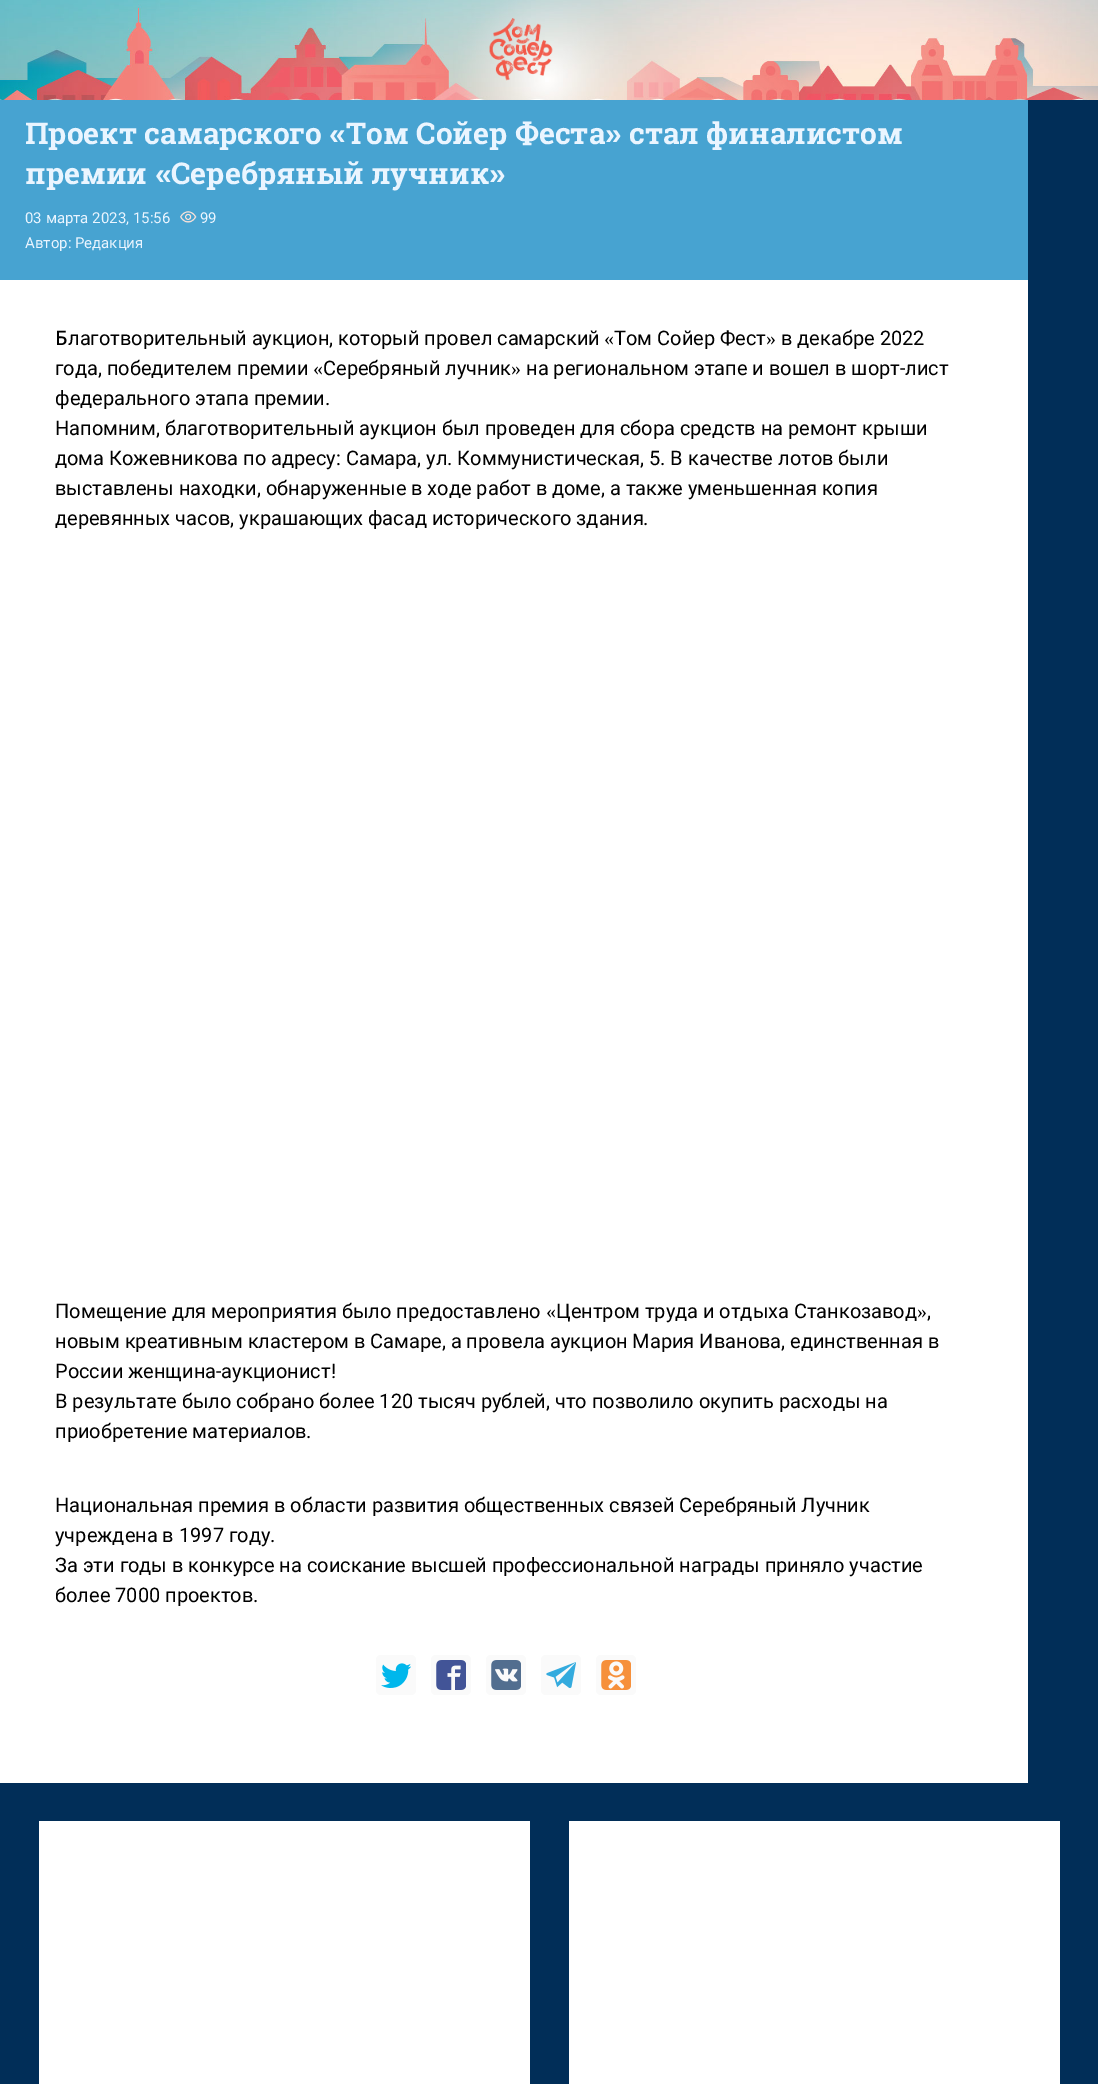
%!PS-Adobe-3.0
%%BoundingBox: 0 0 1098 2084
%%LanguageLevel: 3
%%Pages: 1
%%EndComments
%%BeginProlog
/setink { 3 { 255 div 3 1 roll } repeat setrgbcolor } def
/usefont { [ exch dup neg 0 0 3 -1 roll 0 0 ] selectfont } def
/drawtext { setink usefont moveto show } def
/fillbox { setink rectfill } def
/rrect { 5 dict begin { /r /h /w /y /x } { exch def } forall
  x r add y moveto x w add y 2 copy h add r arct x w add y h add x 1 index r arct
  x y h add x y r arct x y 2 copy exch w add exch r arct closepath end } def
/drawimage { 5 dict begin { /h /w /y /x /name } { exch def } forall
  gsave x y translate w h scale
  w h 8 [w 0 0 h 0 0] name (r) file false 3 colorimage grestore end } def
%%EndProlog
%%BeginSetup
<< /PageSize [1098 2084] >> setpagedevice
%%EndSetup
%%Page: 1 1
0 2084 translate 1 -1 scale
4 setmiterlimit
0 0 1098 2084 1 46 88 fillbox
(assets/img1.rgb) 0 0 1098 100 drawimage
(assets/img2.rgb) 489 18 64 63 drawimage
0 280 1028 1503 255 255 255 fillbox
0 100 1028 180 71 163 209 fillbox
(Проект самарского) 25 144 /RobotoSlab-Bold 30 234 245 255 drawtext
(«) 329 144 /LiberationSans-Bold 30 234 245 255 drawtext
(Том Сойер Феста) 346 144 /RobotoSlab-Bold 30 234 245 255 drawtext
(») 605 144 /LiberationSans-Bold 30 234 245 255 drawtext
(стал финалистом) 629 144 /RobotoSlab-Bold 30 234 245 255 drawtext
(премии) 25 184 /RobotoSlab-Bold 30 234 245 255 drawtext
(«) 155 184 /LiberationSans-Bold 30 234 245 255 drawtext
(Серебряный лучник) 171 184 /RobotoSlab-Bold 30 234 245 255 drawtext
(») 489 184 /LiberationSans-Bold 30 234 245 255 drawtext
(03 марта 2023, 15:56) 25 223 /Roboto-Regular 15 234 245 255 drawtext
(assets/img3.rgb) 180 211 17 12 drawimage
(99) 200 223 /Roboto-Regular 15 234 245 255 drawtext
(Автор: Редакция) 25 248 /Roboto-Regular 15 234 245 255 drawtext
(Б) 55 345 /NotoSans-Medium 20 0 0 0 drawtext
(лаготворительный аукцион, который провел самарский) 68 345 /Roboto-Regular 20 0 0 0 drawtext
(«) 604 345 /LiberationSerif-Regular 20 0 0 0 drawtext
(Том Сойер Фест) 614 345 /Roboto-Regular 20 0 0 0 drawtext
(») 766 345 /LiberationSerif-Regular 20 0 0 0 drawtext
(в декабре 2022) 781 345 /Roboto-Regular 20 0 0 0 drawtext
(года, победителем премии) 55 375 /Roboto-Regular 20 0 0 0 drawtext
(«) 313 375 /LiberationSerif-Regular 20 0 0 0 drawtext
(Серебряный лучник) 323 375 /Roboto-Regular 20 0 0 0 drawtext
(») 511 375 /LiberationSerif-Regular 20 0 0 0 drawtext
(на региональном этапе и вошел в шорт-лист) 526 375 /Roboto-Regular 20 0 0 0 drawtext
(федерального этапа премии.) 55 405 /Roboto-Regular 20 0 0 0 drawtext
(Напомним, благотворительный аукцион был проведен для сбора средств на ремонт крыши) 55 435 /Roboto-Regular 20 0 0 0 drawtext
(дома Кожевникова по адресу: Самара, ул. Коммунистическая, 5. В качестве лотов были) 55 465 /Roboto-Regular 20 0 0 0 drawtext
(выставлены находки, обнаруженные в ходе работ в доме, а также уменьшенная копия) 55 495 /Roboto-Regular 20 0 0 0 drawtext
(деревянных часов, украшающих фасад исторического здания.) 55 525 /Roboto-Regular 20 0 0 0 drawtext
(Помещение для мероприятия было предоставлено) 55 1318 /Roboto-Regular 20 0 0 0 drawtext
(«) 546 1318 /LiberationSerif-Regular 20 0 0 0 drawtext
(Центром труда и отдыха Станкозавод) 556 1318 /Roboto-Regular 20 0 0 0 drawtext
(») 917 1318 /LiberationSerif-Regular 20 0 0 0 drawtext
(,) 927 1318 /Roboto-Regular 20 0 0 0 drawtext
(новым креативным кластером в Самаре, а провела аукцион Мария Иванова, единственная в) 55 1348 /Roboto-Regular 20 0 0 0 drawtext
(России женщина-аукционист!) 55 1378 /Roboto-Regular 20 0 0 0 drawtext
(В результате было собрано более 120 тысяч рублей, что позволило окупить расходы на) 55 1408 /Roboto-Regular 20 0 0 0 drawtext
(приобретение материалов.) 55 1438 /Roboto-Regular 20 0 0 0 drawtext
(Национальная премия в области развития общественных связей Серебряный Лучник) 55 1512 /Roboto-Regular 20 0 0 0 drawtext
(учреждена в 1997 году.) 55 1542 /Roboto-Regular 20 0 0 0 drawtext
(За эти годы в конкурсе на соискание высшей профессиональной награды приняло участие) 55 1572 /Roboto-Regular 20 0 0 0 drawtext
(более 7000 проектов.) 55 1602 /Roboto-Regular 20 0 0 0 drawtext
250 250 250 setink
376 1655 40 40 5 rrect fill
(assets/img4.rgb) 381 1663 30 25 drawimage
431 1655 40 40 5 rrect fill
(assets/img5.rgb) 436 1660 30 30 drawimage
486 1655 40 40 5 rrect fill
(assets/img6.rgb) 491 1660 30 30 drawimage
541 1655 40 40 5 rrect fill
(assets/img7.rgb) 546 1662 30 27 drawimage
596 1655 40 40 5 rrect fill
(assets/img8.rgb) 601 1660 30 30 drawimage
39 1821 491 263 255 255 255 fillbox
569 1821 491 263 255 255 255 fillbox
showpage
%%EOF
